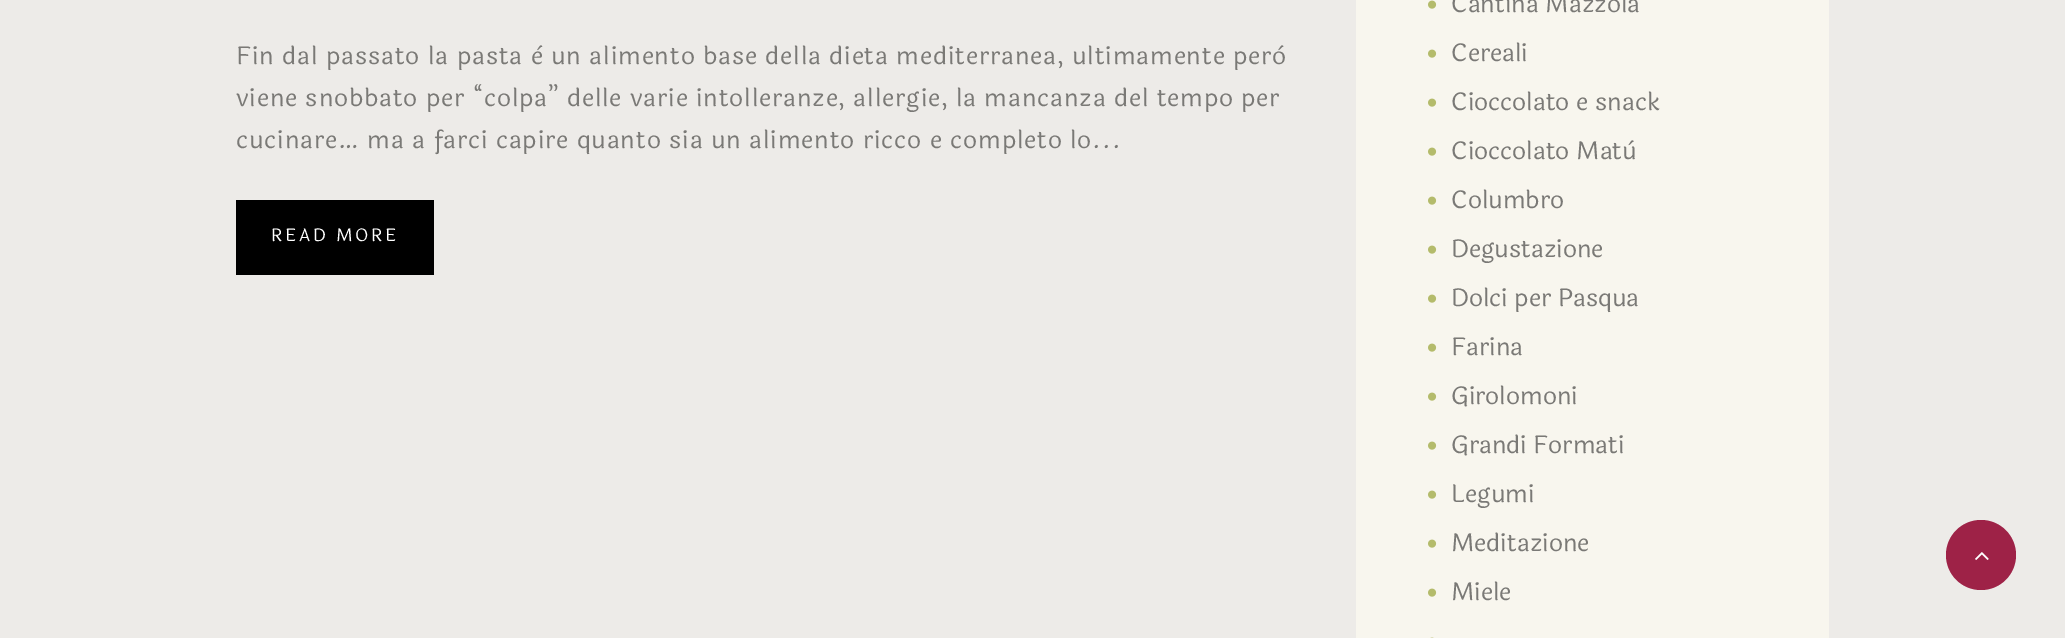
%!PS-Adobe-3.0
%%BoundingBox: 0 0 2065 638
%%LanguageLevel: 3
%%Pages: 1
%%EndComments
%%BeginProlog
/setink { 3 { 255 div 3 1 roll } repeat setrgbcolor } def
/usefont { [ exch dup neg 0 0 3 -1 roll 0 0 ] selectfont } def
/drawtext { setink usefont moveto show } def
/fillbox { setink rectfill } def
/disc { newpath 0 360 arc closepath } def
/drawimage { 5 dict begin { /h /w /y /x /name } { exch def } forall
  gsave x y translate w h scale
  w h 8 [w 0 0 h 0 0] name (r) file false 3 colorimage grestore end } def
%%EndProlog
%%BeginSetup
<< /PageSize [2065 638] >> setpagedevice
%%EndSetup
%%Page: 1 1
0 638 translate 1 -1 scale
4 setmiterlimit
0 0 2065 638 237 235 232 fillbox
/Laila-Regular 24.5 usefont
122 121 118 setink
236 64 moveto 0.88 0 (Fin dal passato la pasta è un alimento base della dieta mediterranea, ultimamente però) ashow
236 106 moveto 0.88 0 (viene snobbato per “colpa” delle varie intolleranze, allergie, la mancanza del tempo per) ashow
236 148 moveto 0.88 0 (cucinare… ma a farci capire quanto sia un alimento ricco e completo lo...) ashow
236 200 198 75 0 0 0 fillbox
/Laila-Regular 17.5 usefont
255 255 255 setink
271 241 moveto 2.75 0 (READ MORE) ashow
1356 0 473 638 248 246 238 fillbox
(assets/img1.rgb) 1428 0 9 9 drawimage
(Cantina Mazzola) 1451 12 /Laila-Regular 24.5 122 121 118 drawtext
(assets/img1.rgb) 1428 49 9 9 drawimage
(Cereali) 1451 61 /Laila-Regular 24.5 122 121 118 drawtext
(assets/img1.rgb) 1428 98 9 9 drawimage
(Cioccolato e snack) 1451 110 /Laila-Regular 24.5 122 121 118 drawtext
(assets/img1.rgb) 1428 147 9 9 drawimage
(Cioccolato Matù) 1451 159 /Laila-Regular 24.5 122 121 118 drawtext
(assets/img1.rgb) 1428 196 9 9 drawimage
(Columbro) 1451 208 /Laila-Regular 24.5 122 121 118 drawtext
(assets/img1.rgb) 1428 245 9 9 drawimage
(Degustazione) 1451 257 /Laila-Regular 24.5 122 121 118 drawtext
(assets/img1.rgb) 1428 294 9 9 drawimage
(Dolci per Pasqua) 1451 306 /Laila-Regular 24.5 122 121 118 drawtext
(assets/img1.rgb) 1428 343 9 9 drawimage
(Farina) 1451 355 /Laila-Regular 24.5 122 121 118 drawtext
(assets/img1.rgb) 1428 392 9 9 drawimage
(Girolomoni) 1451 404 /Laila-Regular 24.5 122 121 118 drawtext
(assets/img1.rgb) 1428 441 9 9 drawimage
(Grandi Formati) 1451 453 /Laila-Regular 24.5 122 121 118 drawtext
(assets/img1.rgb) 1428 490 9 9 drawimage
(Legumi) 1451 502 /Laila-Regular 24.5 122 121 118 drawtext
(assets/img1.rgb) 1428 539 9 9 drawimage
(Meditazione) 1451 551 /Laila-Regular 24.5 122 121 118 drawtext
(assets/img1.rgb) 1428 588 9 9 drawimage
(Miele) 1451 600 /Laila-Regular 24.5 122 121 118 drawtext
(assets/img2.rgb) 1430 637 4 1 drawimage
158 34 71 setink
1981 555 35 disc fill
(assets/img3.rgb) 1975 552 14 8 drawimage
showpage
%%EOF
